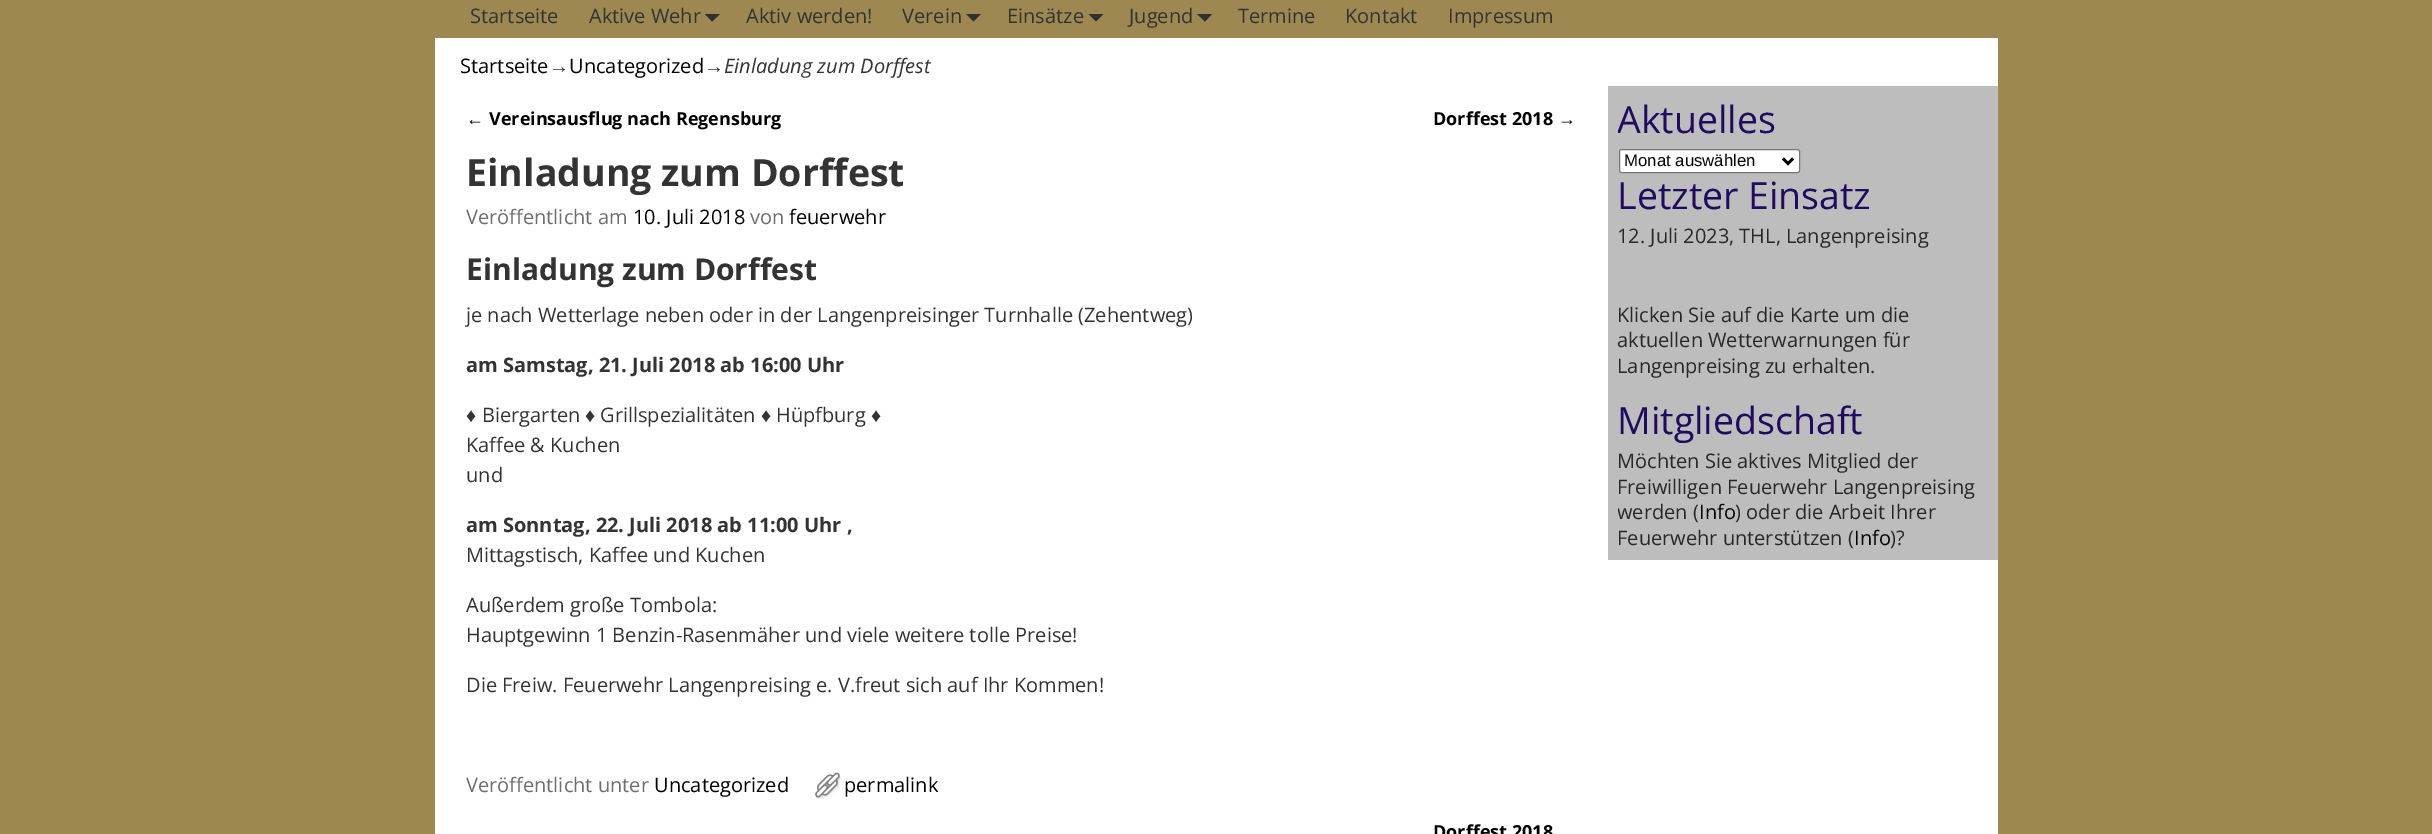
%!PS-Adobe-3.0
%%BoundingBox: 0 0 2432 834
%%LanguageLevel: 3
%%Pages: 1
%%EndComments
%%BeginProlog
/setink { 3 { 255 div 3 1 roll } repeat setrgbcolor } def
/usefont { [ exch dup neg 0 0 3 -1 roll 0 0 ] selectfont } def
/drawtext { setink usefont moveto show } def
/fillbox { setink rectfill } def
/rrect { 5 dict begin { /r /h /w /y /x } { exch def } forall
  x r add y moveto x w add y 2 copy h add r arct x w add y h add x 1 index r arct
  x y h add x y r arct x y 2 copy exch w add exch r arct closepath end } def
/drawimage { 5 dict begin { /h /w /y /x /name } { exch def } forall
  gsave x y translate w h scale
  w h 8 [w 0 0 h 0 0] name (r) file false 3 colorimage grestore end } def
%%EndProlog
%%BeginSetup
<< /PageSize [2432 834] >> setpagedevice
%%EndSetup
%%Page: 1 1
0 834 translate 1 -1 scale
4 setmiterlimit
0 0 2432 834 157 136 81 fillbox
435 38 1563 796 255 255 255 fillbox
(Startseite) 470 23 /OpenSans-Regular 20 51 51 51 drawtext
(Aktive Wehr) 589 23 /OpenSans-Regular 20 51 51 51 drawtext
48 48 48 setink
705 14 moveto 720 14 lineto 712 21.5 lineto closepath fill
(Aktiv werden!) 746 23 /OpenSans-Regular 20 51 51 51 drawtext
(Verein) 902 23 /OpenSans-Regular 20 51 51 51 drawtext
48 48 48 setink
966 14 moveto 981 14 lineto 973.5 21.5 lineto closepath fill
(Einsätze) 1007 23 /OpenSans-Regular 20 51 51 51 drawtext
48 48 48 setink
1088.5 14 moveto 1103.5 14 lineto 1096 21.5 lineto closepath fill
(Jugend) 1129 23 /OpenSans-Regular 20 51 51 51 drawtext
48 48 48 setink
1197 14 moveto 1212 14 lineto 1205 21.5 lineto closepath fill
(Termine) 1238 23 /OpenSans-Regular 20 51 51 51 drawtext
(Kontakt) 1345 23 /OpenSans-Regular 20 51 51 51 drawtext
(Impressum) 1448 23 /OpenSans-Regular 20 51 51 51 drawtext
(Startseite) 460 73 /OpenSans-Regular 20 0 0 0 drawtext
(→) 549 73 /LiberationSans-Regular 20 51 51 51 drawtext
(Uncategorized) 569 73 /OpenSans-Regular 20 0 0 0 drawtext
(→) 704 73 /LiberationSans-Regular 20 51 51 51 drawtext
(Einladung zum Dorffest) 724 73 /OpenSans-Italic 20 51 51 51 drawtext
(←) 466 125 /LiberationSans-Regular 18 0 0 0 drawtext
(Vereinsausflug nach Regensburg) 489 125 /OpenSans-Bold 18 0 0 0 drawtext
(Dorffest 2018) 1433 125 /OpenSans-Bold 18 0 0 0 drawtext
(→) 1558 125 /LiberationSans-Regular 18 0 0 0 drawtext
(Einladung zum Dorffest) 466 186 /OpenSans-Bold 37.5 51 51 51 drawtext
(Veröffentlicht am) 466 224 /OpenSans-Regular 20 110 110 110 drawtext
(10. Juli 2018) 633 224 /OpenSans-Regular 20 0 0 0 drawtext
(von) 750 224 /OpenSans-Regular 20 110 110 110 drawtext
(feuerwehr) 789 224 /OpenSans-Regular 20 0 0 0 drawtext
(Einladung zum Dorffest) 466 280 /OpenSans-Bold 30 51 51 51 drawtext
(je nach Wetterlage neben oder in der Langenpreisinger Turnhalle \(Zehentweg\)) 466 322 /OpenSans-Regular 20 51 51 51 drawtext
(am Samstag, 21. Juli 2018 ab 16:00 Uhr) 466 372 /OpenSans-Bold 20 51 51 51 drawtext
(♦) 466 422 /LiberationSans-Regular 20 51 51 51 drawtext
(Biergarten) 482 422 /OpenSans-Regular 20 51 51 51 drawtext
(♦) 585 422 /LiberationSans-Regular 20 51 51 51 drawtext
(Grillspezialitäten) 600 422 /OpenSans-Regular 20 51 51 51 drawtext
(♦) 761 422 /LiberationSans-Regular 20 51 51 51 drawtext
(Hüpfburg) 776 422 /OpenSans-Regular 20 51 51 51 drawtext
(♦) 871 422 /LiberationSans-Regular 20 51 51 51 drawtext
(Kaffee & Kuchen) 466 452 /OpenSans-Regular 20 51 51 51 drawtext
(und) 466 482 /OpenSans-Regular 20 51 51 51 drawtext
(am Sonntag, 22. Juli 2018 ab 11:00 Uhr ,) 466 532 /OpenSans-Bold 20 51 51 51 drawtext
(Mittagstisch, Kaffee und Kuchen) 466 562 /OpenSans-Regular 20 51 51 51 drawtext
(Außerdem große Tombola:) 466 612 /OpenSans-Regular 20 51 51 51 drawtext
(Hauptgewinn 1 Benzin-Rasenmäher und viele weitere tolle Preise!) 466 642 /OpenSans-Regular 20 51 51 51 drawtext
(Die Freiw. Feuerwehr Langenpreising e. V.freut sich auf Ihr Kommen!) 466 692 /OpenSans-Regular 20 51 51 51 drawtext
(Veröffentlicht unter) 466 792 /OpenSans-Regular 20 110 110 110 drawtext
(Uncategorized) 654 792 /OpenSans-Regular 20 0 0 0 drawtext
(assets/img1.rgb) 815 772 26 27 drawimage
(permalink) 844 792 /OpenSans-Regular 20 0 0 0 drawtext
(Dorffest 2018) 1433 838 /OpenSans-Bold 18 0 0 0 drawtext
1608 86 390 474 189 189 189 fillbox
gsave
1618 96 370 77 rectclip
(Aktuelles) 1617 133 /OpenSans-Regular 37.5 33 11 97 drawtext
grestore
255 255 255 setink
1619.5 149.5 180 23 2 rrect gsave fill grestore
118 118 118 setink
stroke
0 0 0 setink
2.5 setlinewidth
1783 158.5 moveto 1788 163.5 lineto 1793 158.5 lineto stroke
(Monat auswählen) 1624 166 /LiberationSans-Regular 16.75 0 0 0 drawtext
(Letzter Einsatz) 1617 209 /OpenSans-Regular 37.5 33 11 97 drawtext
(12. Juli 2023, THL, Langenpreising) 1617 243 /OpenSans-Regular 20 40 40 40 drawtext
(Klicken Sie auf die Karte um die) 1617 322 /OpenSans-Regular 20 40 40 40 drawtext
(aktuellen Wetterwarnungen für) 1617 347 /OpenSans-Regular 20 40 40 40 drawtext
(Langenpreising zu erhalten.) 1617 373 /OpenSans-Regular 20 40 40 40 drawtext
(Mitgliedschaft) 1617 434 /OpenSans-Regular 37.5 33 11 97 drawtext
(Möchten Sie aktives Mitglied der) 1617 468 /OpenSans-Regular 20 40 40 40 drawtext
(Freiwilligen Feuerwehr Langenpreising) 1617 494 /OpenSans-Regular 20 40 40 40 drawtext
gsave
1618 399 370 151 rectclip
(werden \() 1617 519 /OpenSans-Regular 20 40 40 40 drawtext
grestore
(Info) 1699 519 /OpenSans-Regular 20 0 0 0 drawtext
(\) oder die Arbeit Ihrer) 1735 519 /OpenSans-Regular 20 40 40 40 drawtext
(Feuerwehr unterstützen \() 1617 545 /OpenSans-Regular 20 40 40 40 drawtext
(Info) 1854 545 /OpenSans-Regular 20 0 0 0 drawtext
(\)?) 1890 545 /OpenSans-Regular 20 40 40 40 drawtext
showpage
%%EOF
